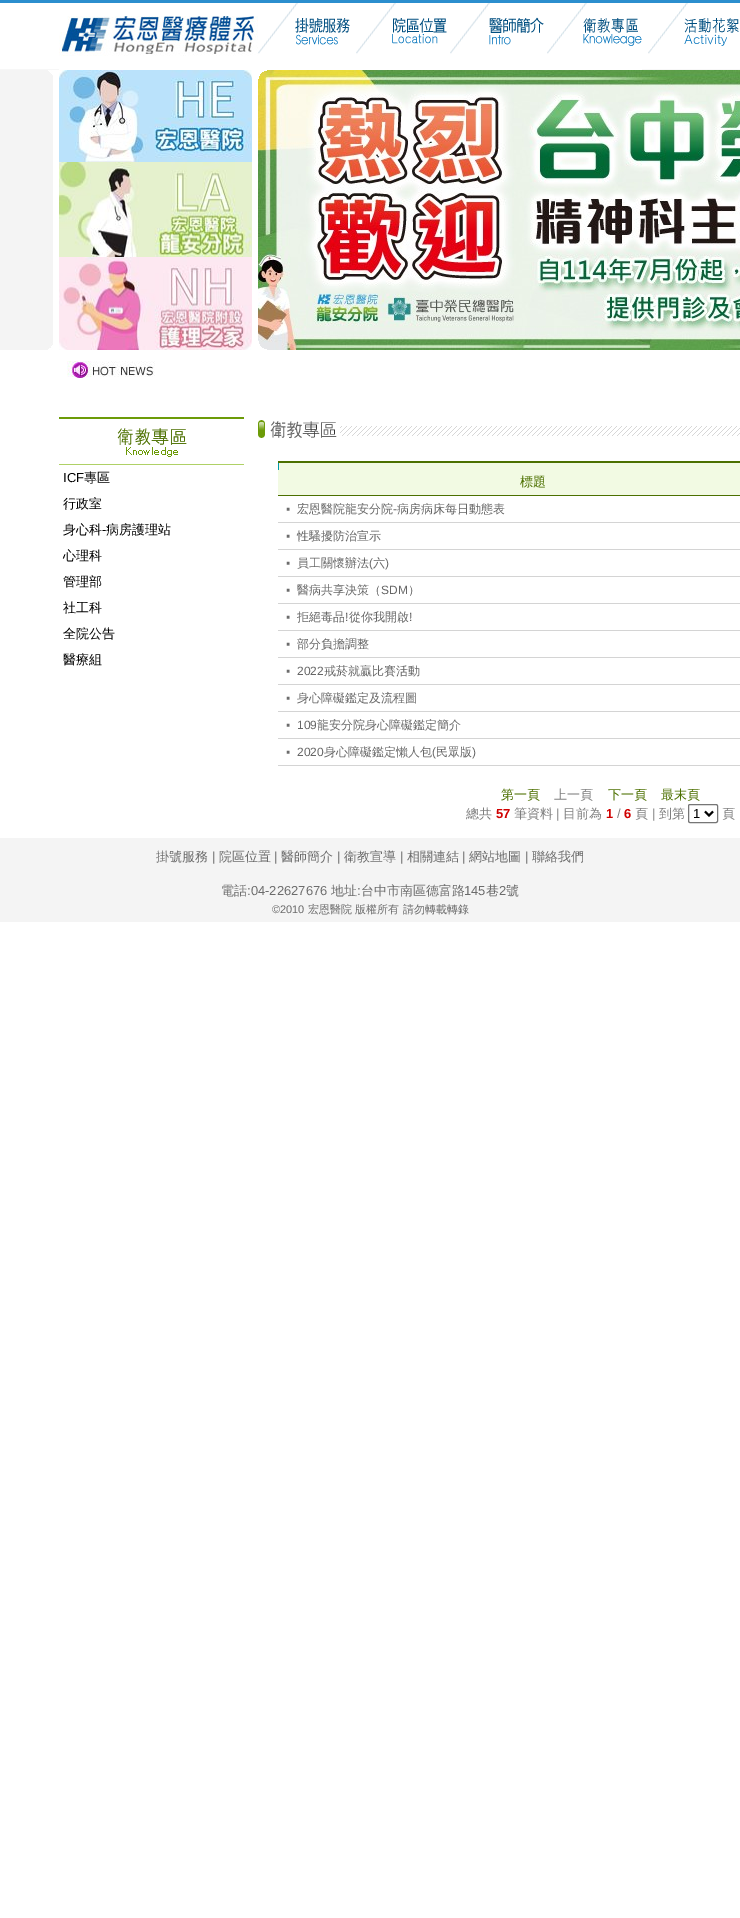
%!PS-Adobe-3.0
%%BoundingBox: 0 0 740 1918
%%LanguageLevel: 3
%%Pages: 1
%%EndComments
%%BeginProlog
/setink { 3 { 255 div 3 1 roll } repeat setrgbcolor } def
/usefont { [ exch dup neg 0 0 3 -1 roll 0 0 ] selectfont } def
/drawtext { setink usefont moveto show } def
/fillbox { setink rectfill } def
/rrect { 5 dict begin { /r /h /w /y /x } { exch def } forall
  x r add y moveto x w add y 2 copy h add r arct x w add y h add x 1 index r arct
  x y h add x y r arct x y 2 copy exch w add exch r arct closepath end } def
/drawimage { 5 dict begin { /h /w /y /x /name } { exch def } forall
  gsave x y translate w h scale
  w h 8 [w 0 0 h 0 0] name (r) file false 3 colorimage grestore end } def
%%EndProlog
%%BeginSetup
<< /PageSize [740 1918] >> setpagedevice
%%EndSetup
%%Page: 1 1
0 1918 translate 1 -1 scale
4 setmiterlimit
0 0 740 1918 255 255 255 fillbox
(assets/img1.rgb) 0 0 740 350 drawimage
(assets/img2.rgb) 59 16 199 54 drawimage
(assets/img3.rgb) 258 3 96 67 drawimage
(assets/img4.rgb) 354 3 96 67 drawimage
(assets/img5.rgb) 450 3 97 67 drawimage
(assets/img6.rgb) 547 3 95 67 drawimage
(assets/img7.rgb) 648 3 91 51 drawimage
(assets/img8.rgb) 48 70 5 280 drawimage
53 70 6 280 255 255 255 fillbox
(assets/img9.rgb) 59 70 193 92 drawimage
(assets/img10.rgb) 59 162 193 95 drawimage
(assets/img11.rgb) 59 257 193 93 drawimage
252 70 6 280 255 255 255 fillbox
(assets/img12.rgb) 258 70 482 280 drawimage
(assets/img13.rgb) 258 70 9 280 drawimage
(assets/img14.rgb) 67 361 88 17 drawimage
(assets/img15.rgb) 59 417 185 48 drawimage
(ICF) 63 482 /LiberationSans-Regular 13 0 0 0 drawtext
(專區) 84 482 /WenQuanYiZenHei-Medium 13 0 0 0 drawtext
(行政室) 63 508 /WenQuanYiZenHei-Medium 13 0 0 0 drawtext
(身心科) 63 534 /WenQuanYiZenHei-Medium 13 0 0 0 drawtext
(-) 102 534 /LiberationSans-Regular 13 0 0 0 drawtext
(病房護理站) 106 534 /WenQuanYiZenHei-Medium 13 0 0 0 drawtext
(心理科) 63 560 /WenQuanYiZenHei-Medium 13 0 0 0 drawtext
(管理部) 63 586 /WenQuanYiZenHei-Medium 13 0 0 0 drawtext
(社工科) 63 612 /WenQuanYiZenHei-Medium 13 0 0 0 drawtext
(全院公告) 63 638 /WenQuanYiZenHei-Medium 13 0 0 0 drawtext
(醫療組) 63 664 /WenQuanYiZenHei-Medium 13 0 0 0 drawtext
(assets/img16.rgb) 258 420 482 19 drawimage
278 463 462 32 242 250 227 fillbox
278 495 462 1 76 112 0 fillbox
278 462 1 8 0 154 168 fillbox
278 461 462 2 76 112 0 fillbox
(標題) 520 486 /WenQuanYiZenHei-Medium 13 76 112 0 drawtext
278 522 462 1 212 212 212 fillbox
(▪) 286 513 /LiberationSans-Regular 12 108 108 108 drawtext
(宏恩醫院龍安分院) 297 513 /WenQuanYiZenHei-Medium 12 102 102 102 drawtext
(-) 393 513 /LiberationSans-Regular 12 102 102 102 drawtext
(病房病床每日動態表) 397 513 /WenQuanYiZenHei-Medium 12 102 102 102 drawtext
278 549 462 1 212 212 212 fillbox
(▪) 286 540 /LiberationSans-Regular 12 108 108 108 drawtext
(性騷擾防治宣示) 297 540 /WenQuanYiZenHei-Medium 12 102 102 102 drawtext
278 576 462 1 212 212 212 fillbox
(▪) 286 567 /LiberationSans-Regular 12 108 108 108 drawtext
(員工關懷辦法) 297 567 /WenQuanYiZenHei-Medium 12 102 102 102 drawtext
(\() 369 567 /LiberationSans-Regular 12 102 102 102 drawtext
(六) 373 567 /WenQuanYiZenHei-Medium 12 102 102 102 drawtext
(\)) 385 567 /LiberationSans-Regular 12 102 102 102 drawtext
278 603 462 1 212 212 212 fillbox
(▪) 286 594 /LiberationSans-Regular 12 108 108 108 drawtext
(醫病共享決策（) 297 594 /WenQuanYiZenHei-Medium 12 102 102 102 drawtext
(SDM) 381 594 /LiberationSans-Regular 12 102 102 102 drawtext
(）) 408 594 /WenQuanYiZenHei-Medium 12 102 102 102 drawtext
278 630 462 1 212 212 212 fillbox
(▪) 286 621 /LiberationSans-Regular 12 108 108 108 drawtext
(拒絕毒品 從你我開啟) 297 621 /WenQuanYiZenHei-Medium 12 102 102 102 drawtext
(!) 345 621 /LiberationSans-Regular 12 102 102 102 drawtext
(!) 409 621 /LiberationSans-Regular 12 102 102 102 drawtext
278 657 462 1 212 212 212 fillbox
(▪) 286 648 /LiberationSans-Regular 12 108 108 108 drawtext
(部分負擔調整) 297 648 /WenQuanYiZenHei-Medium 12 102 102 102 drawtext
278 684 462 1 212 212 212 fillbox
(▪) 286 675 /LiberationSans-Regular 12 108 108 108 drawtext
(2022) 297 675 /LiberationSans-Regular 12 102 102 102 drawtext
(戒菸就贏比賽活動) 324 675 /WenQuanYiZenHei-Medium 12 102 102 102 drawtext
278 711 462 1 212 212 212 fillbox
(▪) 286 702 /LiberationSans-Regular 12 108 108 108 drawtext
(身心障礙鑑定及流程圖) 297 702 /WenQuanYiZenHei-Medium 12 102 102 102 drawtext
278 738 462 1 212 212 212 fillbox
(▪) 286 729 /LiberationSans-Regular 12 108 108 108 drawtext
(109) 297 729 /LiberationSans-Regular 12 102 102 102 drawtext
(龍安分院身心障礙鑑定簡介) 317 729 /WenQuanYiZenHei-Medium 12 102 102 102 drawtext
278 765 462 1 212 212 212 fillbox
(▪) 286 756 /LiberationSans-Regular 12 108 108 108 drawtext
(2020) 297 756 /LiberationSans-Regular 12 102 102 102 drawtext
(身心障礙鑑定懶人包) 324 756 /WenQuanYiZenHei-Medium 12 102 102 102 drawtext
(\() 432 756 /LiberationSans-Regular 12 102 102 102 drawtext
(民眾版) 436 756 /WenQuanYiZenHei-Medium 12 102 102 102 drawtext
(\)) 472 756 /LiberationSans-Regular 12 102 102 102 drawtext
(第一頁) 501 799 /WenQuanYiZenHei-Medium 13 76 112 0 drawtext
(上一頁) 554 799 /WenQuanYiZenHei-Medium 13 127 127 127 drawtext
(下一頁) 608 799 /WenQuanYiZenHei-Medium 13 76 112 0 drawtext
(最末頁) 661 799 /WenQuanYiZenHei-Medium 13 76 112 0 drawtext
(總共) 466 818 /WenQuanYiZenHei-Medium 13 127 127 127 drawtext
(57) 496 818 /LiberationSans-Bold 13 208 0 0 drawtext
(筆資料) 514 818 /WenQuanYiZenHei-Medium 13 127 127 127 drawtext
(|) 556 818 /LiberationSans-Regular 13 127 127 127 drawtext
(目前為) 563 818 /WenQuanYiZenHei-Medium 13 127 127 127 drawtext
(1) 606 818 /LiberationSans-Bold 13 208 0 0 drawtext
(/) 617 818 /LiberationSans-Regular 13 127 127 127 drawtext
(6) 624 818 /LiberationSans-Bold 13 208 0 0 drawtext
(頁) 635 818 /WenQuanYiZenHei-Medium 13 127 127 127 drawtext
(|) 652 818 /LiberationSans-Regular 13 127 127 127 drawtext
(到第) 659 818 /WenQuanYiZenHei-Medium 13 127 127 127 drawtext
118 118 118 setink
688.5 804.5 29 18 1.5 rrect stroke
0 0 0 setink
2 setlinewidth
705 811.5 moveto 709 815.5 lineto 713 811.5 lineto stroke
(1) 693 818 /LiberationSans-Regular 13 0 0 0 drawtext
(頁) 722 818 /WenQuanYiZenHei-Medium 13 127 127 127 drawtext
0 838 740 84 244 244 244 fillbox
(掛號服務) 156 861 /WenQuanYiZenHei-Medium 13 108 108 108 drawtext
(|) 212 861 /LiberationSans-Regular 13 102 102 102 drawtext
(院區位置) 219 861 /WenQuanYiZenHei-Medium 13 108 108 108 drawtext
(|) 274 861 /LiberationSans-Regular 13 102 102 102 drawtext
(醫師簡介) 281 861 /WenQuanYiZenHei-Medium 13 108 108 108 drawtext
(|) 337 861 /LiberationSans-Regular 13 102 102 102 drawtext
(衛教宣導) 344 861 /WenQuanYiZenHei-Medium 13 108 108 108 drawtext
(|) 400 861 /LiberationSans-Regular 13 102 102 102 drawtext
(相關連結) 407 861 /WenQuanYiZenHei-Medium 13 108 108 108 drawtext
(|) 462 861 /LiberationSans-Regular 13 102 102 102 drawtext
(網站地圖) 469 861 /WenQuanYiZenHei-Medium 13 108 108 108 drawtext
(|) 525 861 /LiberationSans-Regular 13 102 102 102 drawtext
(聯絡我們) 532 861 /WenQuanYiZenHei-Medium 13 108 108 108 drawtext
(電話) 221 895 /WenQuanYiZenHei-Medium 13 108 108 108 drawtext
(:04-22627676) 247 895 /LiberationSans-Regular 13 108 108 108 drawtext
(地址 台中市南區德富路) 331 895 /WenQuanYiZenHei-Medium 13 108 108 108 drawtext
(145) 464 895 /LiberationSans-Regular 13 108 108 108 drawtext
(巷) 486 895 /WenQuanYiZenHei-Medium 13 108 108 108 drawtext
(2) 499 895 /LiberationSans-Regular 13 108 108 108 drawtext
(號) 506 895 /WenQuanYiZenHei-Medium 13 108 108 108 drawtext
(:) 357 895 /LiberationSans-Regular 13 108 108 108 drawtext
(©2010) 272 913 /LiberationSans-Regular 11 108 108 108 drawtext
(宏恩醫院 版權所有 請勿轉載轉錄) 308 913 /WenQuanYiZenHei-Medium 11 108 108 108 drawtext
showpage
%%EOF
